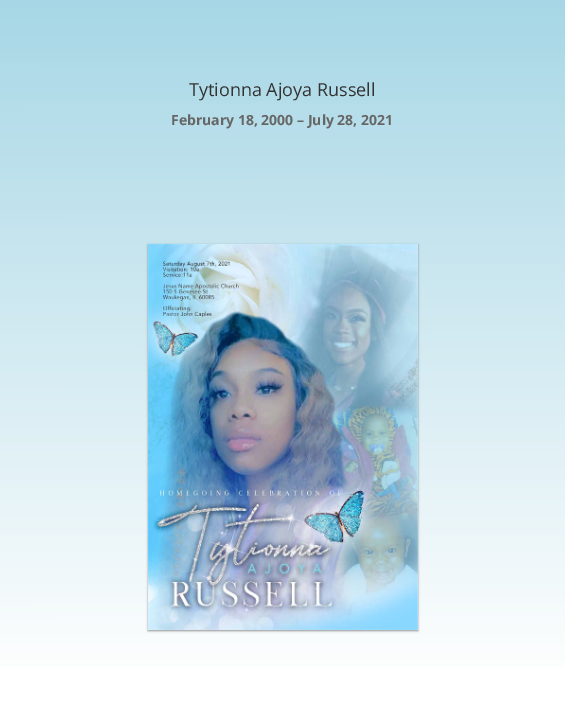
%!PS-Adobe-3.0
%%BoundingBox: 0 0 565 705
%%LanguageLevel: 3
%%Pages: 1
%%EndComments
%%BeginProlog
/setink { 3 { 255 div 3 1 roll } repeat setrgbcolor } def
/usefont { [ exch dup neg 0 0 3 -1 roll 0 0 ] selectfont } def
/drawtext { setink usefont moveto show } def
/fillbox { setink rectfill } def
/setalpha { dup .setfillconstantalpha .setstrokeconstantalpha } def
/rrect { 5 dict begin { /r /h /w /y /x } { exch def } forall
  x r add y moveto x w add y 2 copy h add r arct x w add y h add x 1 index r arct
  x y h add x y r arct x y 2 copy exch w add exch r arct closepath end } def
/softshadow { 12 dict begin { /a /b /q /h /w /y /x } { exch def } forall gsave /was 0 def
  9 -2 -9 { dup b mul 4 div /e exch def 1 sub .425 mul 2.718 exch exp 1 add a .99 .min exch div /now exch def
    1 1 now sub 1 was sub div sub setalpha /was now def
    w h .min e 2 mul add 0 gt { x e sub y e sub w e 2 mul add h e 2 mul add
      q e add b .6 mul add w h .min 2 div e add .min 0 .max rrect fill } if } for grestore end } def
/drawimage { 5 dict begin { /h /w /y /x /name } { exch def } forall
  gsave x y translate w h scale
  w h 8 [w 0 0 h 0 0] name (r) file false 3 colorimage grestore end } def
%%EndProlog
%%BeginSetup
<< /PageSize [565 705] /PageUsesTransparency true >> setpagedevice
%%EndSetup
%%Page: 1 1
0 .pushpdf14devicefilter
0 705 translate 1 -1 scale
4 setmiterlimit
0 0 565 705 255 255 255 fillbox
gsave 0 0 moveto 565 0 lineto 565 667 lineto 0 667 lineto closepath clip newpath
<< /ShadingType 2 /ColorSpace /DeviceRGB /Coords [283 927 282 0] /Extend [true true] /Function << /FunctionType 3 /Domain [0 1] /Functions [<< /FunctionType 2 /Domain [0 1] /C0 [1 1 1] /C1 [1 1 1] /N 1 >> << /FunctionType 2 /Domain [0 1] /C0 [1 1 1] /C1 [0.655 0.843 0.902] /N 1 >>] /Bounds [0.26] /Encode [0 1 0 1] >> >> shfill grestore
(Tytionna Ajoya Russell) 189 96 /OpenSans-Regular 18 51 51 51 drawtext
(February 18, 2000 – July 28, 2021) 171 125 /OpenSans-Bold 14 102 102 102 drawtext
0 0 0 setink
148 245 270 386 0 1 0.22 softshadow
148 245 270 386 0 1 0.22 softshadow
(assets/img1.rgb) 148 244 270 386 drawimage
.poppdf14devicefilter showpage
%%EOF
